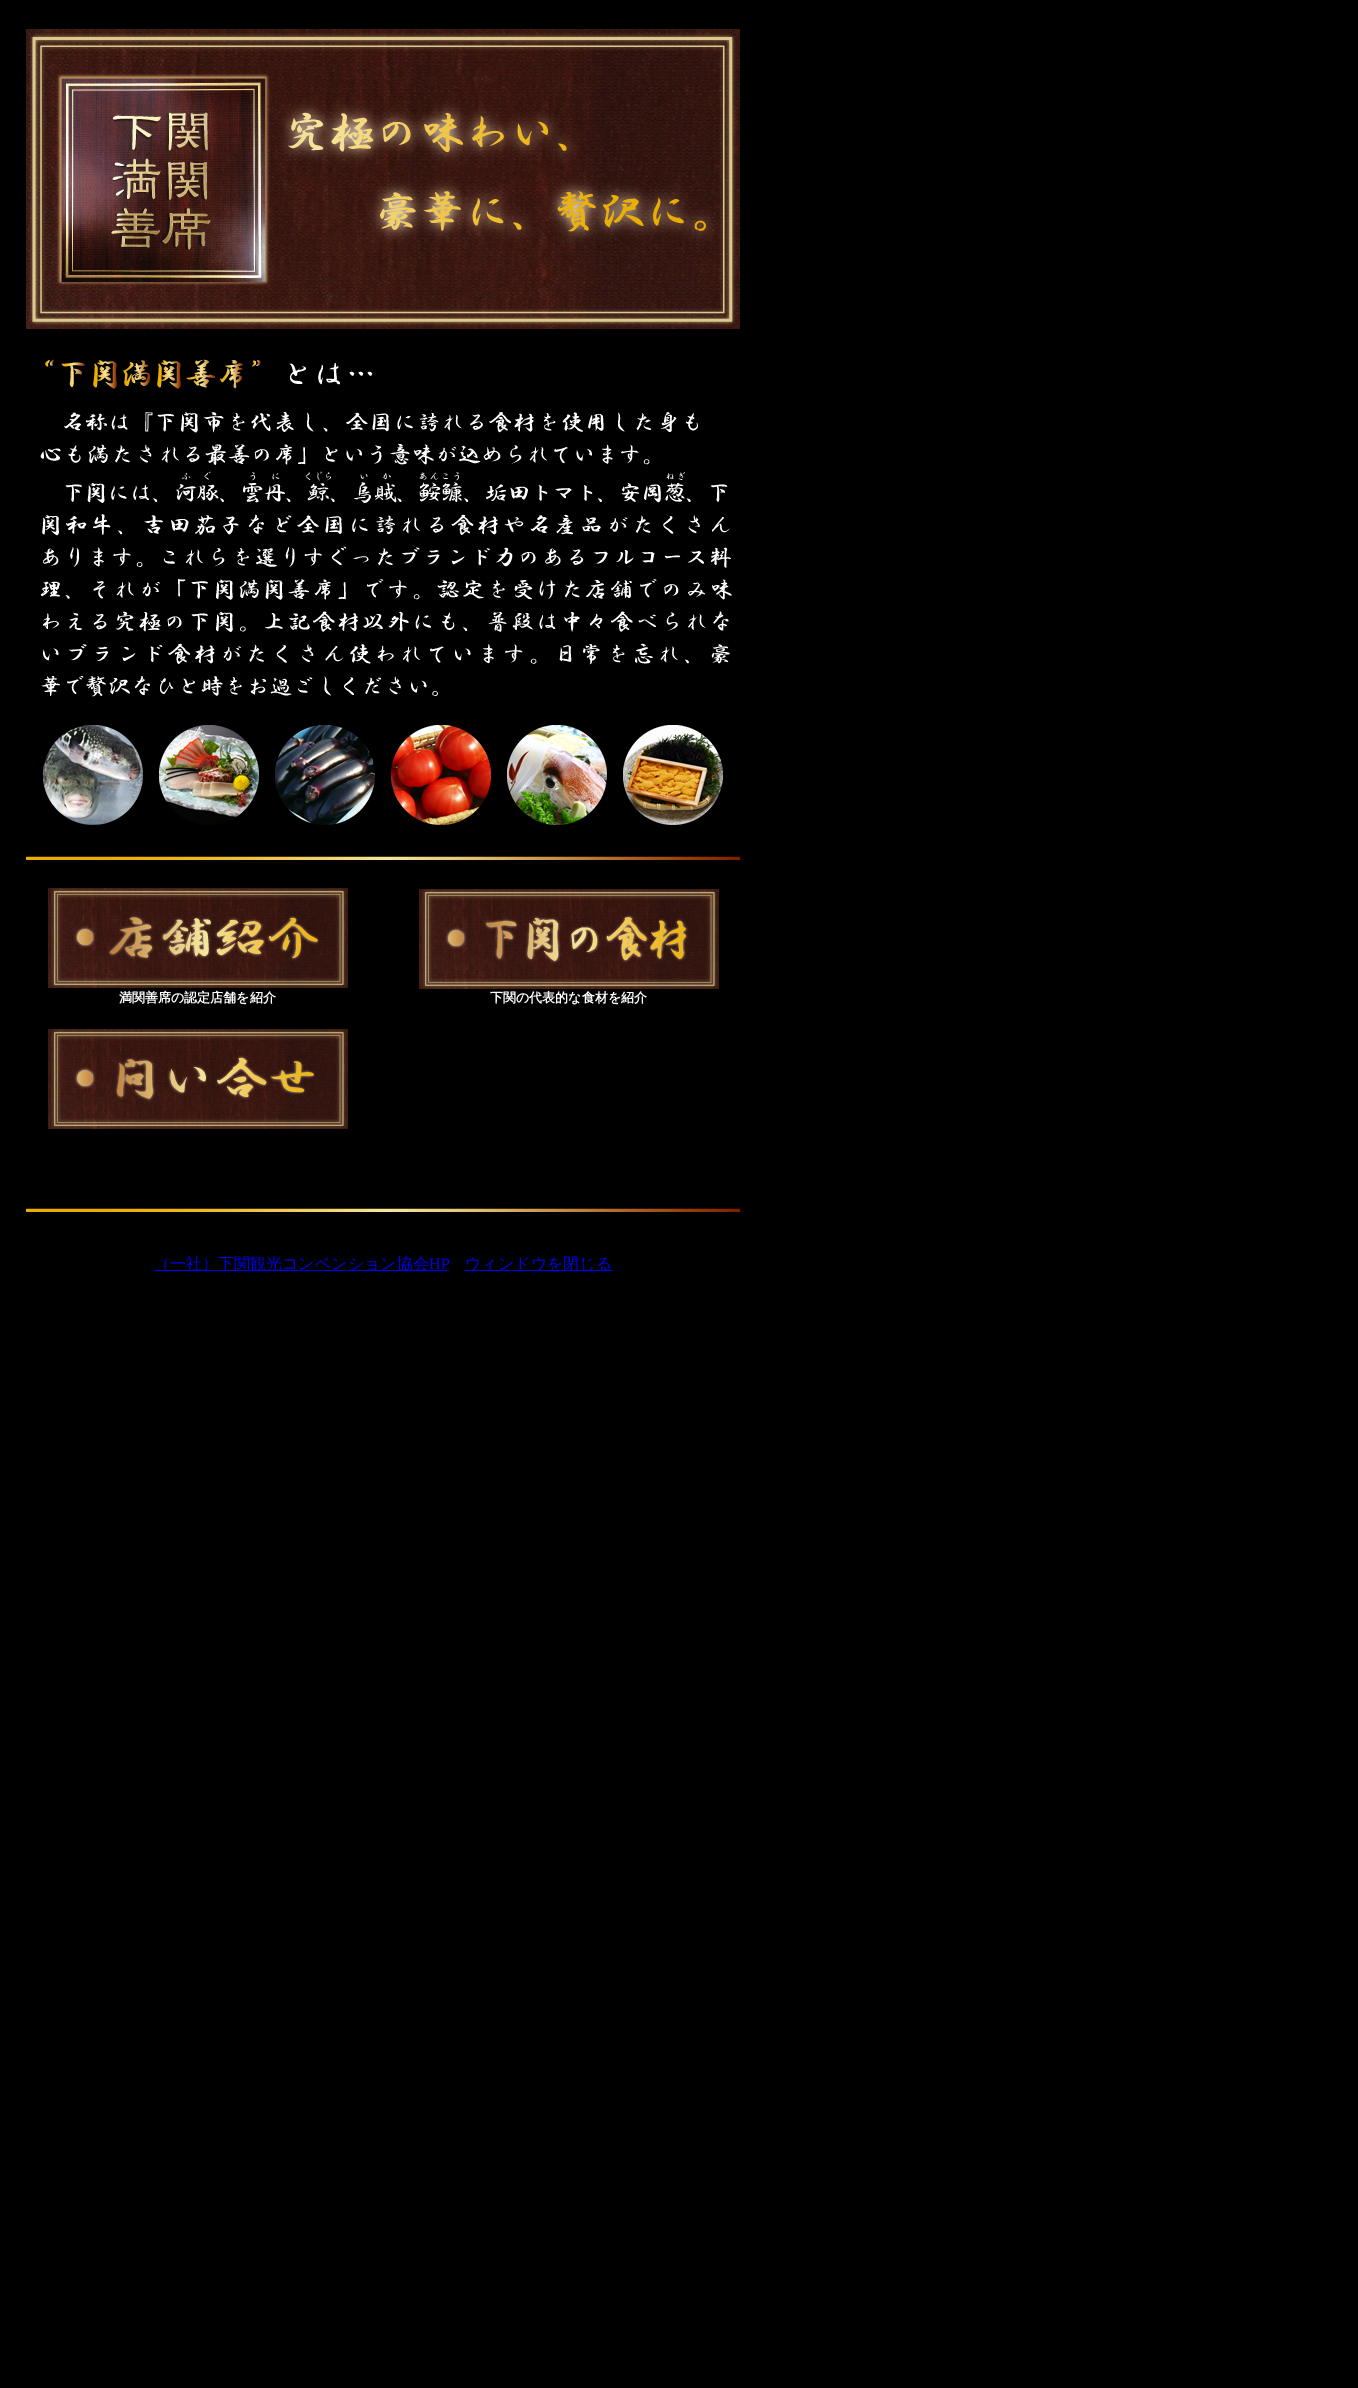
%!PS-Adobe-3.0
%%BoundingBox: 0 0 1358 2388
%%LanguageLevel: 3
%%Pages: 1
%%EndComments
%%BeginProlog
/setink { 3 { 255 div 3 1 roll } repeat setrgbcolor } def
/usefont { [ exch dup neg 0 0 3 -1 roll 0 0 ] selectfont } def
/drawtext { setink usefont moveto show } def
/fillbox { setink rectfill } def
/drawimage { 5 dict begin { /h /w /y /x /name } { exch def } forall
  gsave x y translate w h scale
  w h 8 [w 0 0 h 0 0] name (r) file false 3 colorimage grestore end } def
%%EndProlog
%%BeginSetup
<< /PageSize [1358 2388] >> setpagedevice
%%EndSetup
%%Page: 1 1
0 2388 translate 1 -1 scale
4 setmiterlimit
0 0 1358 2388 0 0 0 fillbox
(assets/img1.rgb) 26 29 714 300 drawimage
(assets/img2.rgb) 40 359 692 338 drawimage
(assets/img3.rgb) 43 725 100 100 drawimage
(assets/img4.rgb) 159 725 100 100 drawimage
(assets/img5.rgb) 275 725 100 100 drawimage
(assets/img6.rgb) 391 725 100 100 drawimage
(assets/img7.rgb) 507 725 100 100 drawimage
(assets/img8.rgb) 623 725 100 100 drawimage
(assets/img9.rgb) 26 856 714 4 drawimage
(assets/img10.rgb) 48 888 300 100 drawimage
(満関善席の認定店舗を紹介) 119 1002 /WenQuanYiZenHei-Bold 13 255 255 255 drawtext
(assets/img11.rgb) 419 889 300 100 drawimage
(下関の代表的な食材を紹介) 490 1002 /WenQuanYiZenHei-Bold 13 255 255 255 drawtext
(assets/img12.rgb) 48 1029 300 100 drawimage
(assets/img9.rgb) 26 1208 714 4 drawimage
154 1270 295 1 0 0 238 fillbox
(（一社）下関観光コンベンション協会) 154 1269 /WenQuanYiZenHei-Medium 16 0 0 238 drawtext
(HP) 429 1269 /LiberationSerif-Regular 16 0 0 238 drawtext
465 1270 147 1 0 0 238 fillbox
(ウィンドウを閉じる) 465 1269 /WenQuanYiZenHei-Medium 16 0 0 238 drawtext
showpage
%%EOF
